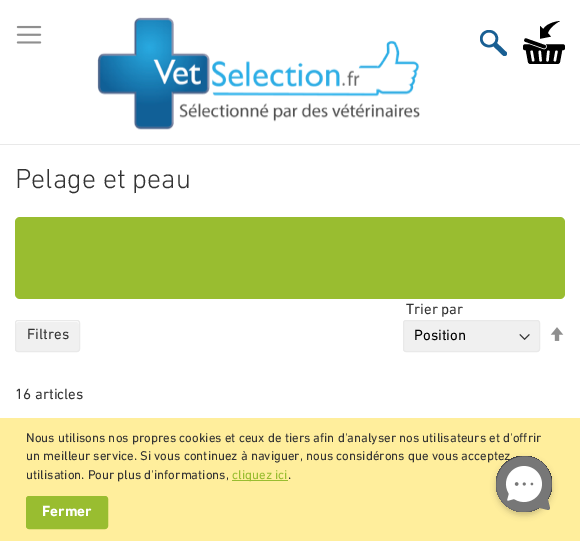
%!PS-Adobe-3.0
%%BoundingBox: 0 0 580 541
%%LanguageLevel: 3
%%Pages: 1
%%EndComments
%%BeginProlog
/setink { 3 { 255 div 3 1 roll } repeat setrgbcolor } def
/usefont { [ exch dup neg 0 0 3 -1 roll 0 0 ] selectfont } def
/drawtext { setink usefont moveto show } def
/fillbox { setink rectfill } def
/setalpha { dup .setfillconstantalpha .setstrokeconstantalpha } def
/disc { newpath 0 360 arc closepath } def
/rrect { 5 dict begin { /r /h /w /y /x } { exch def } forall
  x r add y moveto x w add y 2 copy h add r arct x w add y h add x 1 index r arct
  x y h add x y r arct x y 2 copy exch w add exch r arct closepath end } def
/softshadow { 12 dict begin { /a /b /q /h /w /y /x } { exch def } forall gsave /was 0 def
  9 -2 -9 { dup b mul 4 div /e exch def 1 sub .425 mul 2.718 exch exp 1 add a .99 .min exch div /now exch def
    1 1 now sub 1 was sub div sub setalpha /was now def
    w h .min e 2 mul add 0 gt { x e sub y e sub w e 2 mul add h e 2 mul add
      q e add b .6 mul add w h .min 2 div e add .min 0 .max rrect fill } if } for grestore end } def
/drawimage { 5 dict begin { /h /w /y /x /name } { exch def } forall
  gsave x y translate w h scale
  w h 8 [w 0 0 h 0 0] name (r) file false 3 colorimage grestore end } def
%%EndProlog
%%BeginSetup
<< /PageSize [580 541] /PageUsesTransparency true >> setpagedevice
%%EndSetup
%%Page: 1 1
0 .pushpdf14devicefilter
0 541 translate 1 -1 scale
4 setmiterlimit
0 0 580 541 255 255 255 fillbox
0 144 580 1 233 233 233 fillbox
(assets/img1.rgb) 16 25 26 19 drawimage
(assets/img2.rgb) 97 17 323 113 drawimage
(assets/img3.rgb) 480 30 27 26 drawimage
(assets/img4.rgb) 523 21 42 43 drawimage
(Pelage et peau) 15 188 /DINNext-Light 28 51 51 51 drawtext
153 189 48 setink
15 217 550 82 5 rrect fill
(Trier par) 406 314 /DINNext-Regular 15 51 51 51 drawtext
240 240 240 setink
403 320 137 32 3 rrect fill
(assets/img5.rgb) 519 334 11 6 drawimage
233 233 233 setink
403.5 320.5 136 31 2.5 rrect stroke
(Position) 414 340 /DINNext-Regular 15 0 0 0 drawtext
(assets/img6.rgb) 550 327 14 14 drawimage
(16 articles) 15 399 /DINNext-Regular 15 51 51 51 drawtext
240 240 240 setink
15 320 65 32 3 rrect fill
255 255 255 setink
18 322 moveto 77 322 lineto 78 322 79 323 79 324 curveto 79 318 71 321 67 321 curveto 28 321 lineto 24 321 16 318 16 324 curveto 16 323 17 322 18 322 curveto closepath fill
233 233 233 setink
15.5 320.5 64 31 2.5 rrect stroke
(Filtres) 27 339 /DINNext-Regular 15 51 51 51 drawtext
0 418 580 123 255 238 156 fillbox
(Nous utilisons nos propres cookies et ceux de tiers afin d'analyser nos utilisateurs et d'offrir) 26 442 /DINNext-Regular 13 51 51 51 drawtext
(un meilleur service. Si vous continuez à naviguer, nous considérons que vous acceptez) 26 460 /DINNext-Regular 13 51 51 51 drawtext
(utilisation. Pour plus d'informations,) 26 479 /DINNext-Regular 13 51 51 51 drawtext
232 480 56 1 153 189 48 fillbox
(cliquez ici) 232 479 /DINNext-Regular 13 153 189 48 drawtext
(.) 288 479 /DINNext-Regular 13 51 51 51 drawtext
153 189 48 setink
26.5 496.5 81 32 2.5 rrect gsave fill grestore
stroke
(Fermer) 42 516 /DINNext-Bold 15 255 255 255 drawtext
0 0 0 setink
496 459 56 56 28 3 0.2 softshadow
gsave 524 484 28 disc clip newpath
<< /ShadingType 2 /ColorSpace /DeviceRGB /Coords [496 512 552 456] /Extend [true true] /Function << /FunctionType 2 /Domain [0 1] /C0 [0.467 0.467 0.467] /C1 [0.133 0.133 0.133] /N 1 >> >> shfill grestore
119 119 119 setink
544 464 moveto 533 453 515 454 504 465 curveto 494 476 494 493 504 503 curveto 513 513 527 514 538 508 curveto 540 508 lineto 548 510 lineto 549 510 550 509 550 508 curveto 548 500 lineto 548 498 lineto 554 488 553 474 544 464 curveto closepath fill
(assets/img7.rgb) 505 466 37 37 drawimage
(assets/img8.rgb) 514 482 20 4 drawimage
.poppdf14devicefilter showpage
%%EOF
